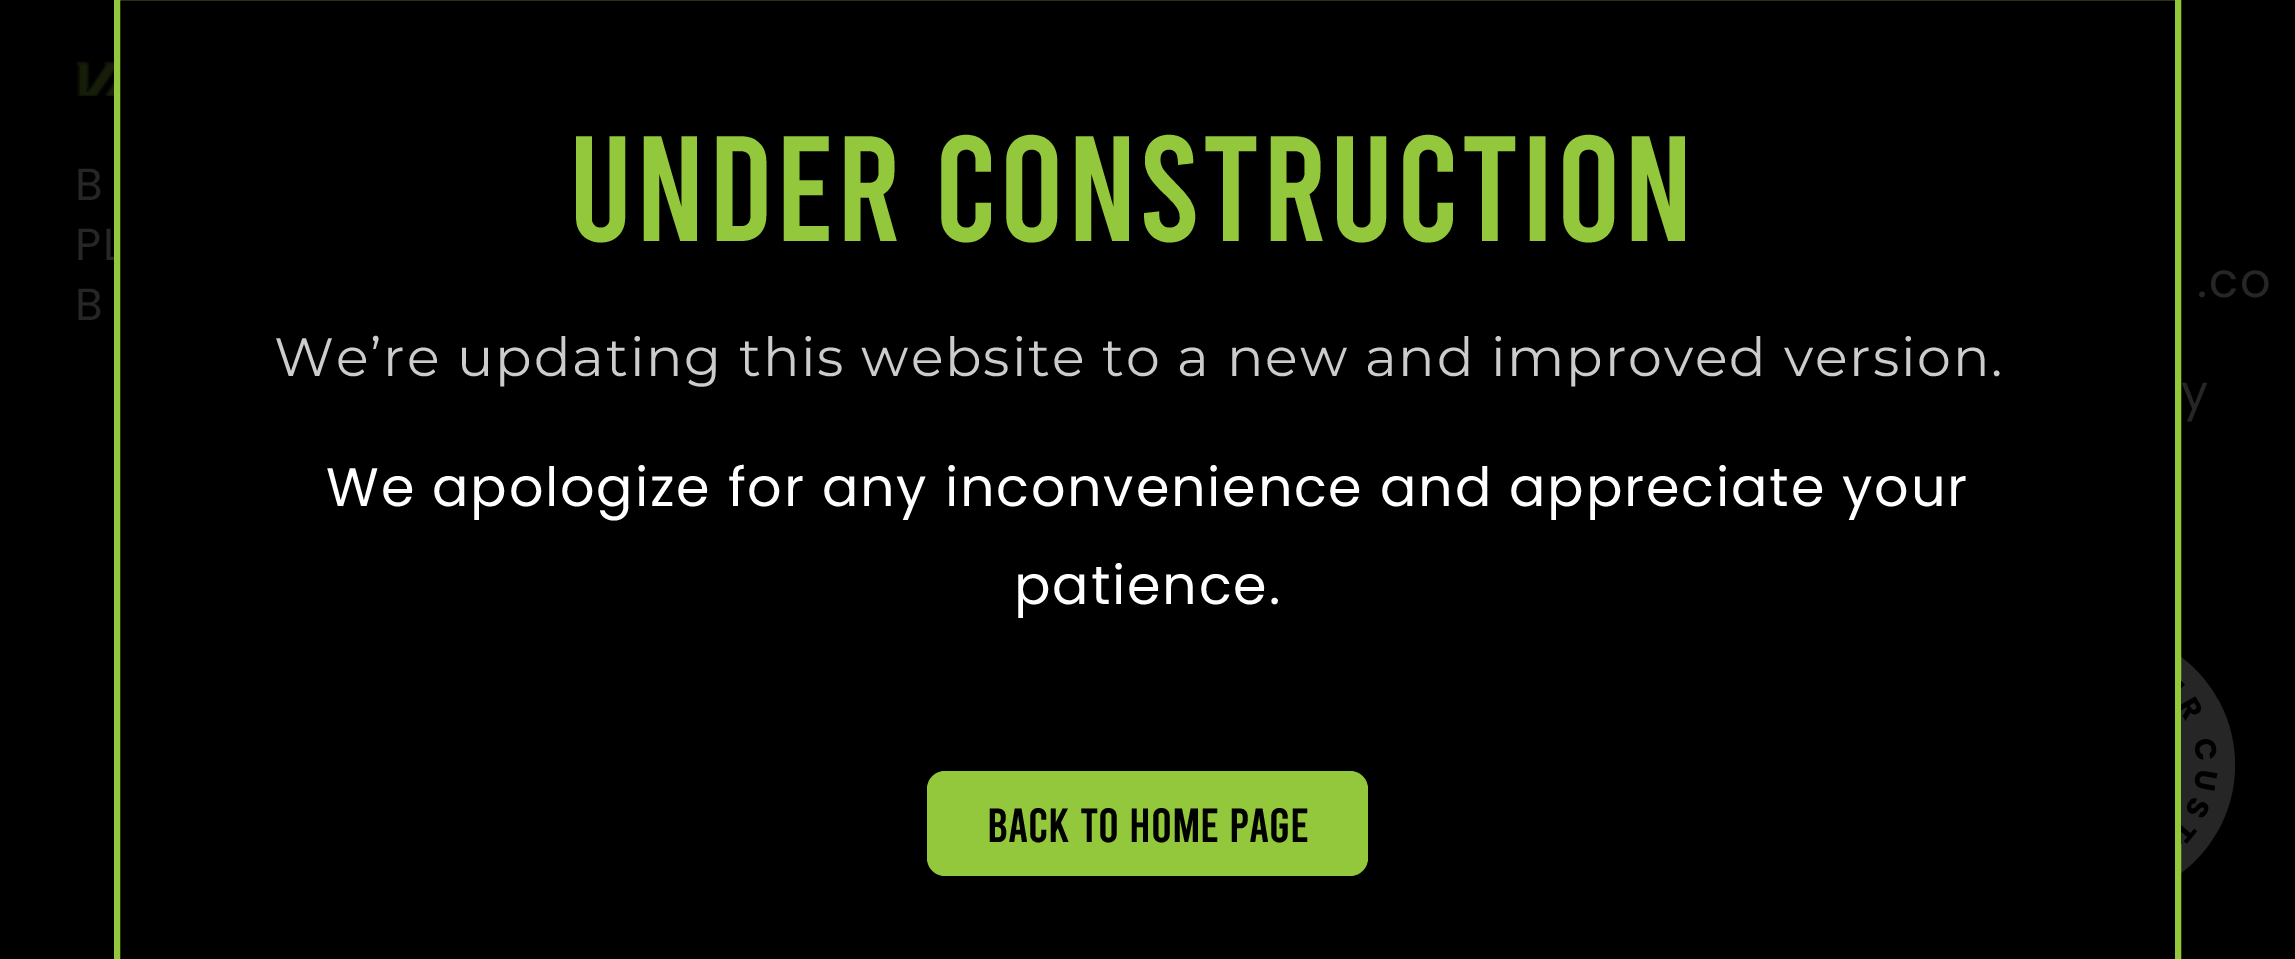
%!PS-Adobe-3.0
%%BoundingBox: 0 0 2295 959
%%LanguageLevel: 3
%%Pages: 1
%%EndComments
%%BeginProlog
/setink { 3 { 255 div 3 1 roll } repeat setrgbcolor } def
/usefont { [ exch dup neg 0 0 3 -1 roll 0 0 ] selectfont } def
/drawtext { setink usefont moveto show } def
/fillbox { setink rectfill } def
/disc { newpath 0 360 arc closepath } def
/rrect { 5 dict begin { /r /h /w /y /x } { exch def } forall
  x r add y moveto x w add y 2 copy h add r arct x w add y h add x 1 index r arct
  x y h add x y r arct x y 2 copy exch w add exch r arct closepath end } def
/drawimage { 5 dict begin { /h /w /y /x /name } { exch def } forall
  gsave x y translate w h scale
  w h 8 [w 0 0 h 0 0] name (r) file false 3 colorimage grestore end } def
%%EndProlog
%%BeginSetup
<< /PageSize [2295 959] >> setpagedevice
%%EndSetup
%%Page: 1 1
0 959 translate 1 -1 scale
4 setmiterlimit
0 0 2295 959 0 0 0 fillbox
/Poppins-Regular 45 usefont
38 38 38 setink
75 260 moveto 1.8 0 (PL) ashow
2100 765 135 disc fill
120 256 2055 644 0 0 0 fillbox
147 200 61 setink
6 setlinewidth
117 -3 2061 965 rectstroke
/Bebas-Regular 150 usefont
568 241 moveto 1.8 0 (UNDER CONSTRUCTION) ashow
/Montserrat-Regular 54 usefont
204 204 204 setink
274 376 moveto 1.8 0 (We’re updating this website to a new and improved version.) ashow
/Poppins-Regular 54 usefont
255 255 255 setink
326 506 moveto 1.8 0 (We apologize for any inconvenience and appreciate your) ashow
1014 604 moveto 1.8 0 (patience.) ashow
147 200 61 setink
927 771 441 105 18 rrect fill
(BACK TO HOME PAGE) 987 842 /Bebas-Regular 48 0 0 0 drawtext
(assets/img1.rgb) 75 61 39 35 drawimage
/Poppins-Regular 45 usefont
38 38 38 setink
75 200 moveto 1.8 0 (B) ashow
75 320 moveto 1.8 0 (B) ashow
/Poppins-Regular 48 usefont
2197 297 moveto 1.8 0 (.co) ashow
2181 409 moveto 1.8 0 (y) ashow
(assets/img2.rgb) 2181 681 37 163 drawimage
showpage
%%EOF
